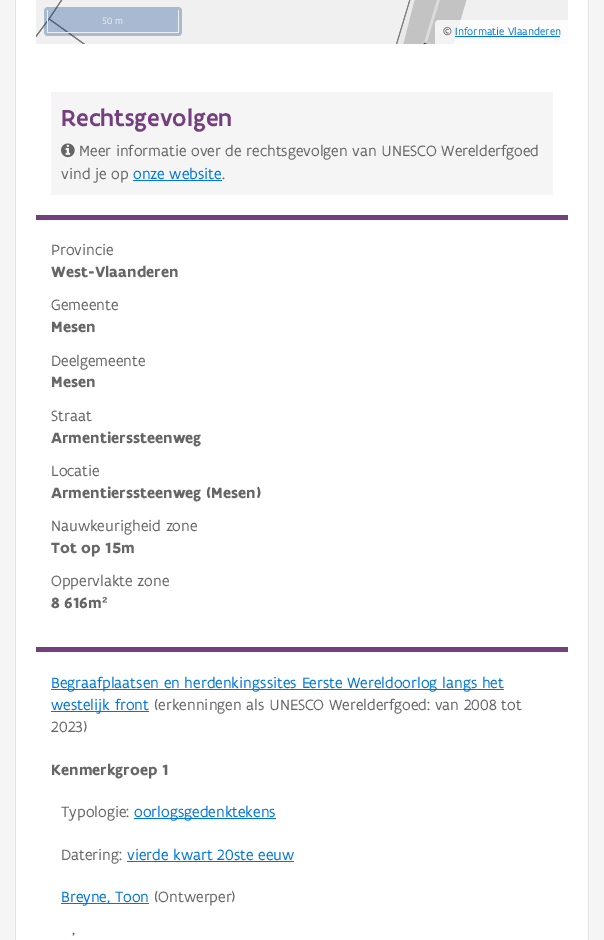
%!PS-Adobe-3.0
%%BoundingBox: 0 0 604 940
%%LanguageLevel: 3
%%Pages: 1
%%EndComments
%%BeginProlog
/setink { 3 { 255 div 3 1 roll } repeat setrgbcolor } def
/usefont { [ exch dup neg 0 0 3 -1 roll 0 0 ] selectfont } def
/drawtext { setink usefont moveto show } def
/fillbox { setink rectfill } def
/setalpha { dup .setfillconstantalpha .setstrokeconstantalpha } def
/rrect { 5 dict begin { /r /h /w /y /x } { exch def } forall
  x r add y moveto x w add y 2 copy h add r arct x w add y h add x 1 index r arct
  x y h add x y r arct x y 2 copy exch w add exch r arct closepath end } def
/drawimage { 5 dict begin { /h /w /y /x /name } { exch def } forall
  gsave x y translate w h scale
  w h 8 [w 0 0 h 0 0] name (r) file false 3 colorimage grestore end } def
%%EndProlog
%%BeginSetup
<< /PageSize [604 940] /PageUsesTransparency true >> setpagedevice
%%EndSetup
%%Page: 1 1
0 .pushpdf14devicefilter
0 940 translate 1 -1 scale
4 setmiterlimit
0 0 604 940 245 245 245 fillbox
16 0 572 940 255 255 255 fillbox
227 227 227 setink
589 -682 moveto 589 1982 lineto 588 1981 lineto 588 -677 lineto closepath fill
15 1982 moveto 15 -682 lineto 16 -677 lineto 16 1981 lineto closepath fill
(assets/img1.rgb) 36 0 532 44 drawimage
0.3 setalpha
0 60 136 setink
44 7 138 29 4 rrect fill
1 setalpha
178 10 1 23 238 238 238 fillbox
47 32 132 1 238 238 238 fillbox
47 10 1 23 238 238 238 fillbox
(50 m) 102 24 /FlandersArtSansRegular-Regular 10 238 238 238 drawtext
0.8 setalpha
255 255 255 setink
439 20 moveto 568 20 lineto 568 44 lineto 435 44 lineto 435 24 lineto 435 22 437 20 439 20 curveto closepath fill
1 setalpha
(©) 443 35 /FlandersArtSansRegular-Regular 11.25 102 102 102 drawtext
(Informatie Vlaanderen) 455 35 /FlandersArtSansRegular-Regular 11.25 0 117 219 drawtext
455 36 105 1 0 117 219 fillbox
51 92 502 103 245 245 245 fillbox
(Rechtsgevolgen) 61 126 /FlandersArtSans-Medium 25 117 63 127 drawtext
(assets/img2.rgb) 61 143 14 15 drawimage
(Meer informatie over de rechtsgevolgen van UNESCO Werelderfgoed) 79 156 /FlandersArtSansRegular-Regular 16 102 102 102 drawtext
(vind je op) 61 179 /FlandersArtSansRegular-Regular 16 102 102 102 drawtext
(onze website) 133 179 /FlandersArtSansRegular-Regular 16 0 117 219 drawtext
133 180 89 1 0 117 219 fillbox
(.) 222 179 /FlandersArtSansRegular-Regular 16 102 102 102 drawtext
36 215 532 5 117 63 127 fillbox
(Provincie) 51 255 /FlandersArtSansRegular-Regular 16 102 102 102 drawtext
(West-Vlaanderen) 51 277 /FlandersArtSans-Bold 16 102 102 102 drawtext
(Gemeente) 51 310 /FlandersArtSansRegular-Regular 16 102 102 102 drawtext
(Mesen) 51 332 /FlandersArtSans-Bold 16 102 102 102 drawtext
(Deelgemeente) 51 366 /FlandersArtSansRegular-Regular 16 102 102 102 drawtext
(Mesen) 51 387 /FlandersArtSans-Bold 16 102 102 102 drawtext
(Straat) 51 421 /FlandersArtSansRegular-Regular 16 102 102 102 drawtext
(Armentierssteenweg) 51 443 /FlandersArtSans-Bold 16 102 102 102 drawtext
(Locatie) 51 476 /FlandersArtSansRegular-Regular 16 102 102 102 drawtext
(Armentierssteenweg \(Mesen\)) 51 498 /FlandersArtSans-Bold 16 102 102 102 drawtext
(Nauwkeurigheid zone) 51 531 /FlandersArtSansRegular-Regular 16 102 102 102 drawtext
(Tot op 15m) 51 553 /FlandersArtSans-Bold 16 102 102 102 drawtext
(Oppervlakte zone) 51 586 /FlandersArtSansRegular-Regular 16 102 102 102 drawtext
(8 616m) 51 608 /FlandersArtSans-Bold 16 102 102 102 drawtext
(²) 102 608 /LiberationSans-Bold 16 102 102 102 drawtext
36 647 532 5 117 63 127 fillbox
51 689 453 1 0 117 219 fillbox
(Begraafplaatsen en herdenkingssites Eerste Wereldoorlog langs het) 51 688 /FlandersArtSansRegular-Regular 16 0 117 219 drawtext
51 711 98 1 0 117 219 fillbox
(westelijk front) 51 710 /FlandersArtSansRegular-Regular 16 0 117 219 drawtext
(\(erkenningen als UNESCO Werelderfgoed: van 2008 tot) 154 710 /FlandersArtSansRegular-Regular 16 102 102 102 drawtext
(2023\)) 51 732 /FlandersArtSansRegular-Regular 16 102 102 102 drawtext
(Kenmerkgroep 1) 51 775 /FlandersArtSans-Bold 16 102 102 102 drawtext
(Typologie:) 61 817 /FlandersArtSansRegular-Regular 16 102 102 102 drawtext
134 818 142 1 0 117 219 fillbox
(oorlogsgedenktekens) 134 817 /FlandersArtSansRegular-Regular 16 0 117 219 drawtext
(Datering:) 61 860 /FlandersArtSansRegular-Regular 16 102 102 102 drawtext
(vierde kwart 20ste eeuw) 127 860 /FlandersArtSansRegular-Regular 16 0 117 219 drawtext
127 861 167 1 0 117 219 fillbox
61 903 88 1 0 117 219 fillbox
(Breyne, Toon) 61 902 /FlandersArtSansRegular-Regular 16 0 117 219 drawtext
(\(Ontwerper\)) 154 902 /FlandersArtSansRegular-Regular 16 102 102 102 drawtext
(') 72 944 /FlandersArtSansRegular-Regular 16 0 117 219 drawtext
.poppdf14devicefilter showpage
%%EOF
